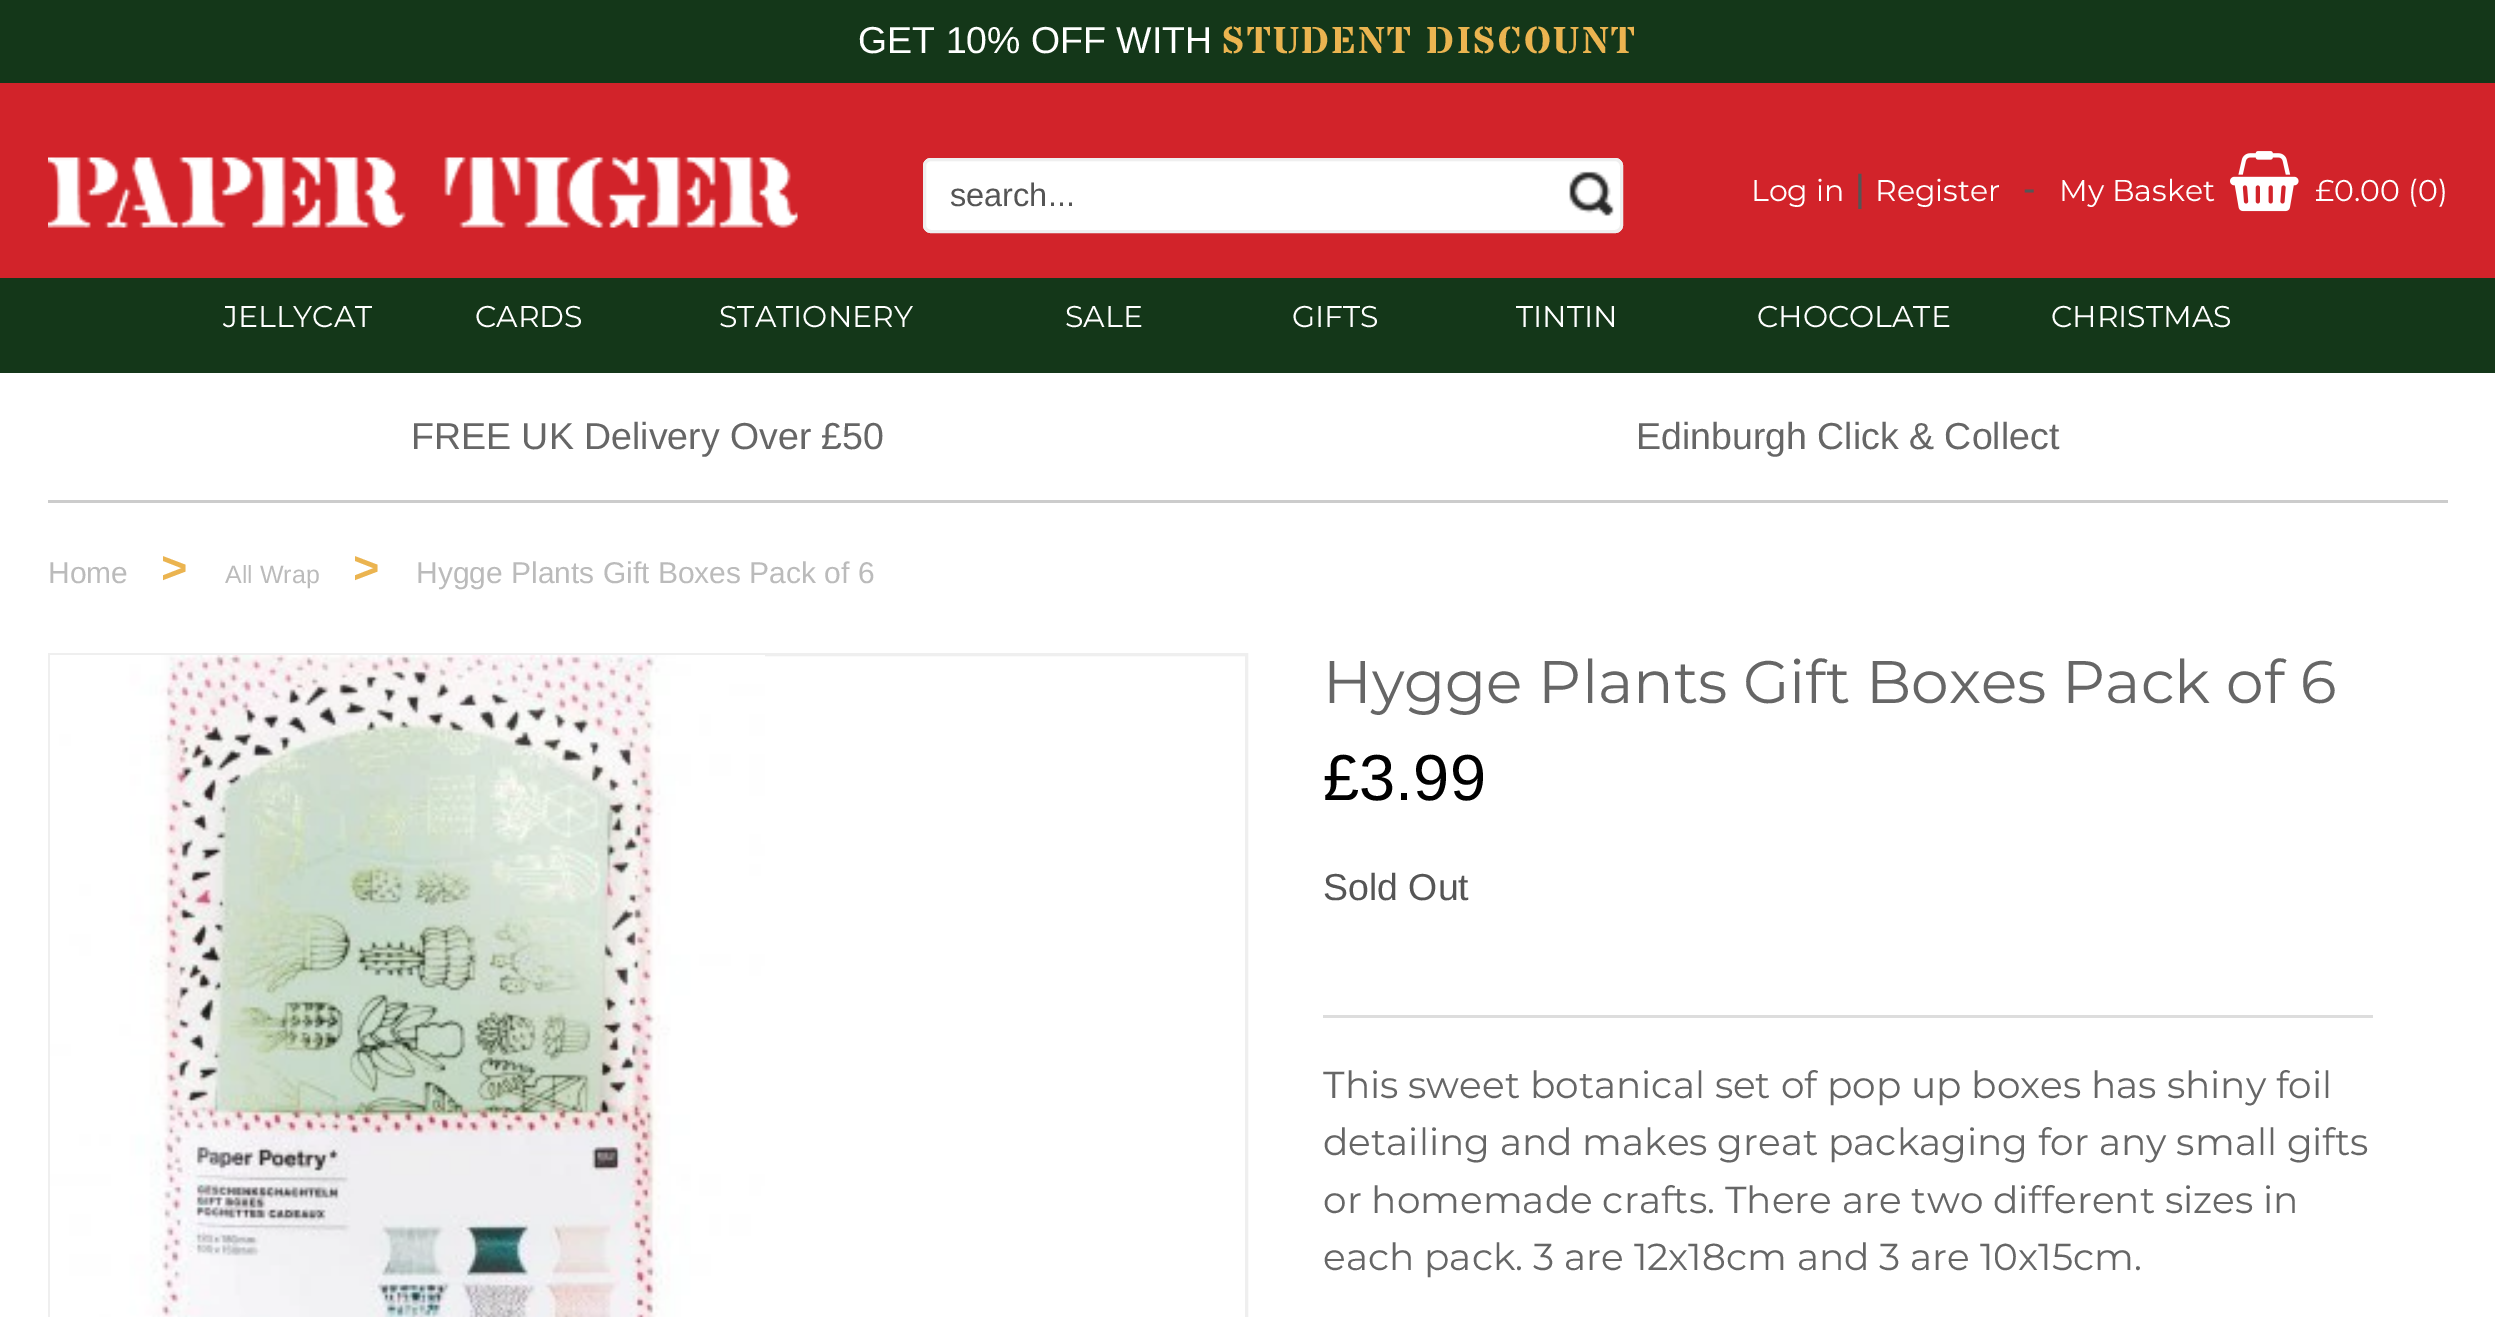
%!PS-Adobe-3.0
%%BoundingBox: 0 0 2495 1317
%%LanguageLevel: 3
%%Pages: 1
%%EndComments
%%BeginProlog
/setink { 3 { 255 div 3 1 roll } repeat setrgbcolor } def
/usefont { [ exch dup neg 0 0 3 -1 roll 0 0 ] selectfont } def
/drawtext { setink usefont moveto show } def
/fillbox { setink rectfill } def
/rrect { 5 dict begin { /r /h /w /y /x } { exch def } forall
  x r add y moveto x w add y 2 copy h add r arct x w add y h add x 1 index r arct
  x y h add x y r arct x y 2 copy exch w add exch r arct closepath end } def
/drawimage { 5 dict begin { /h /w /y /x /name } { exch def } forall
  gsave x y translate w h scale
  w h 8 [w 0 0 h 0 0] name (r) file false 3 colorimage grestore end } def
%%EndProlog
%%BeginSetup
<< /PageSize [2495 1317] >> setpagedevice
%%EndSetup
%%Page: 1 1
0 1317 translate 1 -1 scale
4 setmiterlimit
0 0 2495 1317 255 255 255 fillbox
0 0 2495 83 20 55 25 fillbox
(GET 10% OFF WITH) 858 53 /LiberationSans-Regular 37.5 255 255 255 drawtext
/StardosStencil-Bold 37.5 usefont
235 180 80 setink
1222 53 moveto 2.5 0 (STUDENT DISCOUNT) ashow
0 83 2495 195 210 35 42 fillbox
(assets/img1.rgb) 48 157 750 71 drawimage
255 255 255 setink
923 158 700 75 8 rrect fill
(assets/img2.rgb) 1569 171 45 45 drawimage
239 239 239 setink
3 setlinewidth
924.5 159.5 697 72 6.5 rrect stroke
(search...) 950 206 /LiberationSans-Regular 32.5 85 85 85 drawtext
(Log in) 1751 201 /Montserrat-Regular 30 255 255 255 drawtext
(|) 1855 201 /LiberationSans-Regular 37.5 85 85 85 drawtext
(Register) 1875 201 /Montserrat-Regular 30 255 255 255 drawtext
(-) 2023 201 /LiberationSans-Regular 37.5 85 85 85 drawtext
(My Basket) 2059 201 /Montserrat-Regular 30 255 255 255 drawtext
(assets/img3.rgb) 2230 151 69 61 drawimage
(£0.00 \(0\)) 2315 201 /Montserrat-Regular 30 255 255 255 drawtext
0 278 2495 95 20 55 25 fillbox
(JELLYCAT) 223 327 /Montserrat-Regular 30 255 255 255 drawtext
(CARDS) 475 327 /Montserrat-Regular 30 255 255 255 drawtext
(STATIONERY) 719 327 /Montserrat-Regular 30 255 255 255 drawtext
(SALE) 1065 327 /Montserrat-Regular 30 255 255 255 drawtext
(GIFTS) 1292 327 /Montserrat-Regular 30 255 255 255 drawtext
(TINTIN) 1516 327 /Montserrat-Regular 30 255 255 255 drawtext
(CHOCOLATE) 1757 327 /Montserrat-Regular 30 255 255 255 drawtext
(CHRISTMAS) 2051 327 /Montserrat-Regular 30 255 255 255 drawtext
(FREE UK Delivery Over £50) 411 449 /LiberationSans-Regular 37.5 102 102 102 drawtext
(Edinburgh Click & Collect) 1636 449 /LiberationSans-Regular 37.5 102 102 102 drawtext
48 500 2400 3 204 204 204 fillbox
(Home) 48 583 /LiberationSans-Regular 30 187 187 187 drawtext
(>) 161 583 /LiberationSans-Bold 45 235 180 80 drawtext
(All Wrap) 225 583 /LiberationSans-Regular 25 187 187 187 drawtext
(>) 353 583 /LiberationSans-Bold 45 235 180 80 drawtext
(Hygge Plants Gift Boxes Pack of 6) 416 583 /LiberationSans-Regular 30 187 187 187 drawtext
239 239 239 setink
49.5 654.5 1197 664 rectstroke
(assets/img4.rgb) 50 655 715 662 drawimage
(Hygge Plants Gift Boxes Pack of 6) 1323 703 /Montserrat-Regular 60 102 102 102 drawtext
(£3.99) 1323 800 /LiberationSans-Regular 65 0 0 0 drawtext
1323 1015 1050 3 221 221 221 fillbox
(Sold Out) 1323 900 /LiberationSans-Regular 37.5 85 85 85 drawtext
(This sweet botanical set of pop up boxes has shiny foil) 1323 1098 /Montserrat-Regular 37.5 102 102 102 drawtext
(detailing and makes great packaging for any small gifts) 1323 1155 /Montserrat-Regular 37.5 102 102 102 drawtext
(or homemade crafts. There are two different sizes in) 1323 1213 /Montserrat-Regular 37.5 102 102 102 drawtext
(each pack. 3 are 12x18cm and 3 are 10x15cm.) 1323 1270 /Montserrat-Regular 37.5 102 102 102 drawtext
showpage
%%EOF
